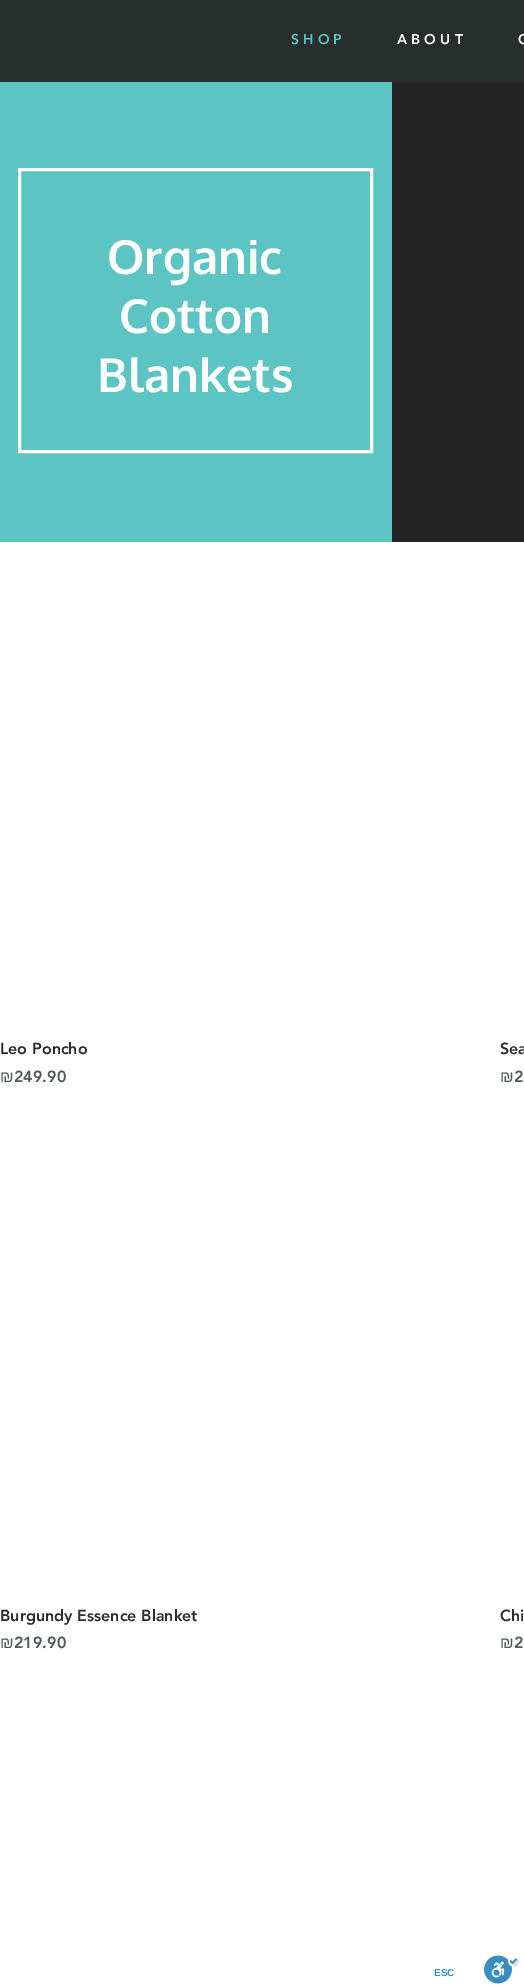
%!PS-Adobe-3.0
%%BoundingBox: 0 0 524 1987
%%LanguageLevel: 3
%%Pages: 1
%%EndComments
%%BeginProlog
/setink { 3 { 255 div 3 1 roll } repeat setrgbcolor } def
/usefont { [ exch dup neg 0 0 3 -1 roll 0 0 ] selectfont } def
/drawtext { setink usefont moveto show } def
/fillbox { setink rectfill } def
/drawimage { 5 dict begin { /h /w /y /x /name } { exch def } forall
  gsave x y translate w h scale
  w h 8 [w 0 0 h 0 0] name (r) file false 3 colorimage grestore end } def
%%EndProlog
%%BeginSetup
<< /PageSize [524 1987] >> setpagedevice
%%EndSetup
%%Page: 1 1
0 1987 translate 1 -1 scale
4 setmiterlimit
0 0 524 1987 255 255 255 fillbox
0 0 524 82 40 46 43 fillbox
(S H O P) 291 44 /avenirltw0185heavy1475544-Black 14 92 196 195 drawtext
(A B O U T) 397 44 /avenirltw0185heavy1475544-Black 14 255 255 254 drawtext
(C) 518 44 /avenirltw0185heavy1475544-Black 14 255 255 254 drawtext
0 82 392 460 92 196 195 fillbox
255 255 255 setink
3 setlinewidth
19.5 169.5 352 282 rectstroke
(Organic) 107 274 /Oxygen-Bold 47 255 255 254 drawtext
(Cotton) 119 333 /Oxygen-Bold 47 255 255 254 drawtext
(Blankets) 97 392 /Oxygen-Bold 47 255 255 254 drawtext
392 82 132 460 36 35 35 fillbox
(Leo Poncho) 0 1054 /avenirltw0185heavy1475544-Black 16 40 46 43 drawtext
(₪) 0 1082 /LiberationSans-Regular 16 79 92 87 drawtext
(249.90) 14 1082 /avenirltw0185heavy1475544-Black 16 79 92 87 drawtext
(Sea) 500 1054 /avenirltw0185heavy1475544-Black 16 40 46 43 drawtext
(₪) 500 1082 /LiberationSans-Regular 16 79 92 87 drawtext
(2) 514 1082 /avenirltw0185heavy1475544-Black 16 79 92 87 drawtext
(Burgundy Essence Blanket) 0 1621 /avenirltw0185heavy1475544-Black 16 40 46 43 drawtext
(₪) 0 1648 /LiberationSans-Regular 16 79 92 87 drawtext
(219.90) 14 1648 /avenirltw0185heavy1475544-Black 16 79 92 87 drawtext
(Chi) 500 1621 /avenirltw0185heavy1475544-Black 16 40 46 43 drawtext
(₪) 500 1648 /LiberationSans-Regular 16 79 92 87 drawtext
(2) 514 1648 /avenirltw0185heavy1475544-Black 16 79 92 87 drawtext
(ESC) 434 1976 /LiberationSans-Bold 10 58 141 194 drawtext
(assets/img1.rgb) 484 1955 35 29 drawimage
showpage
%%EOF
